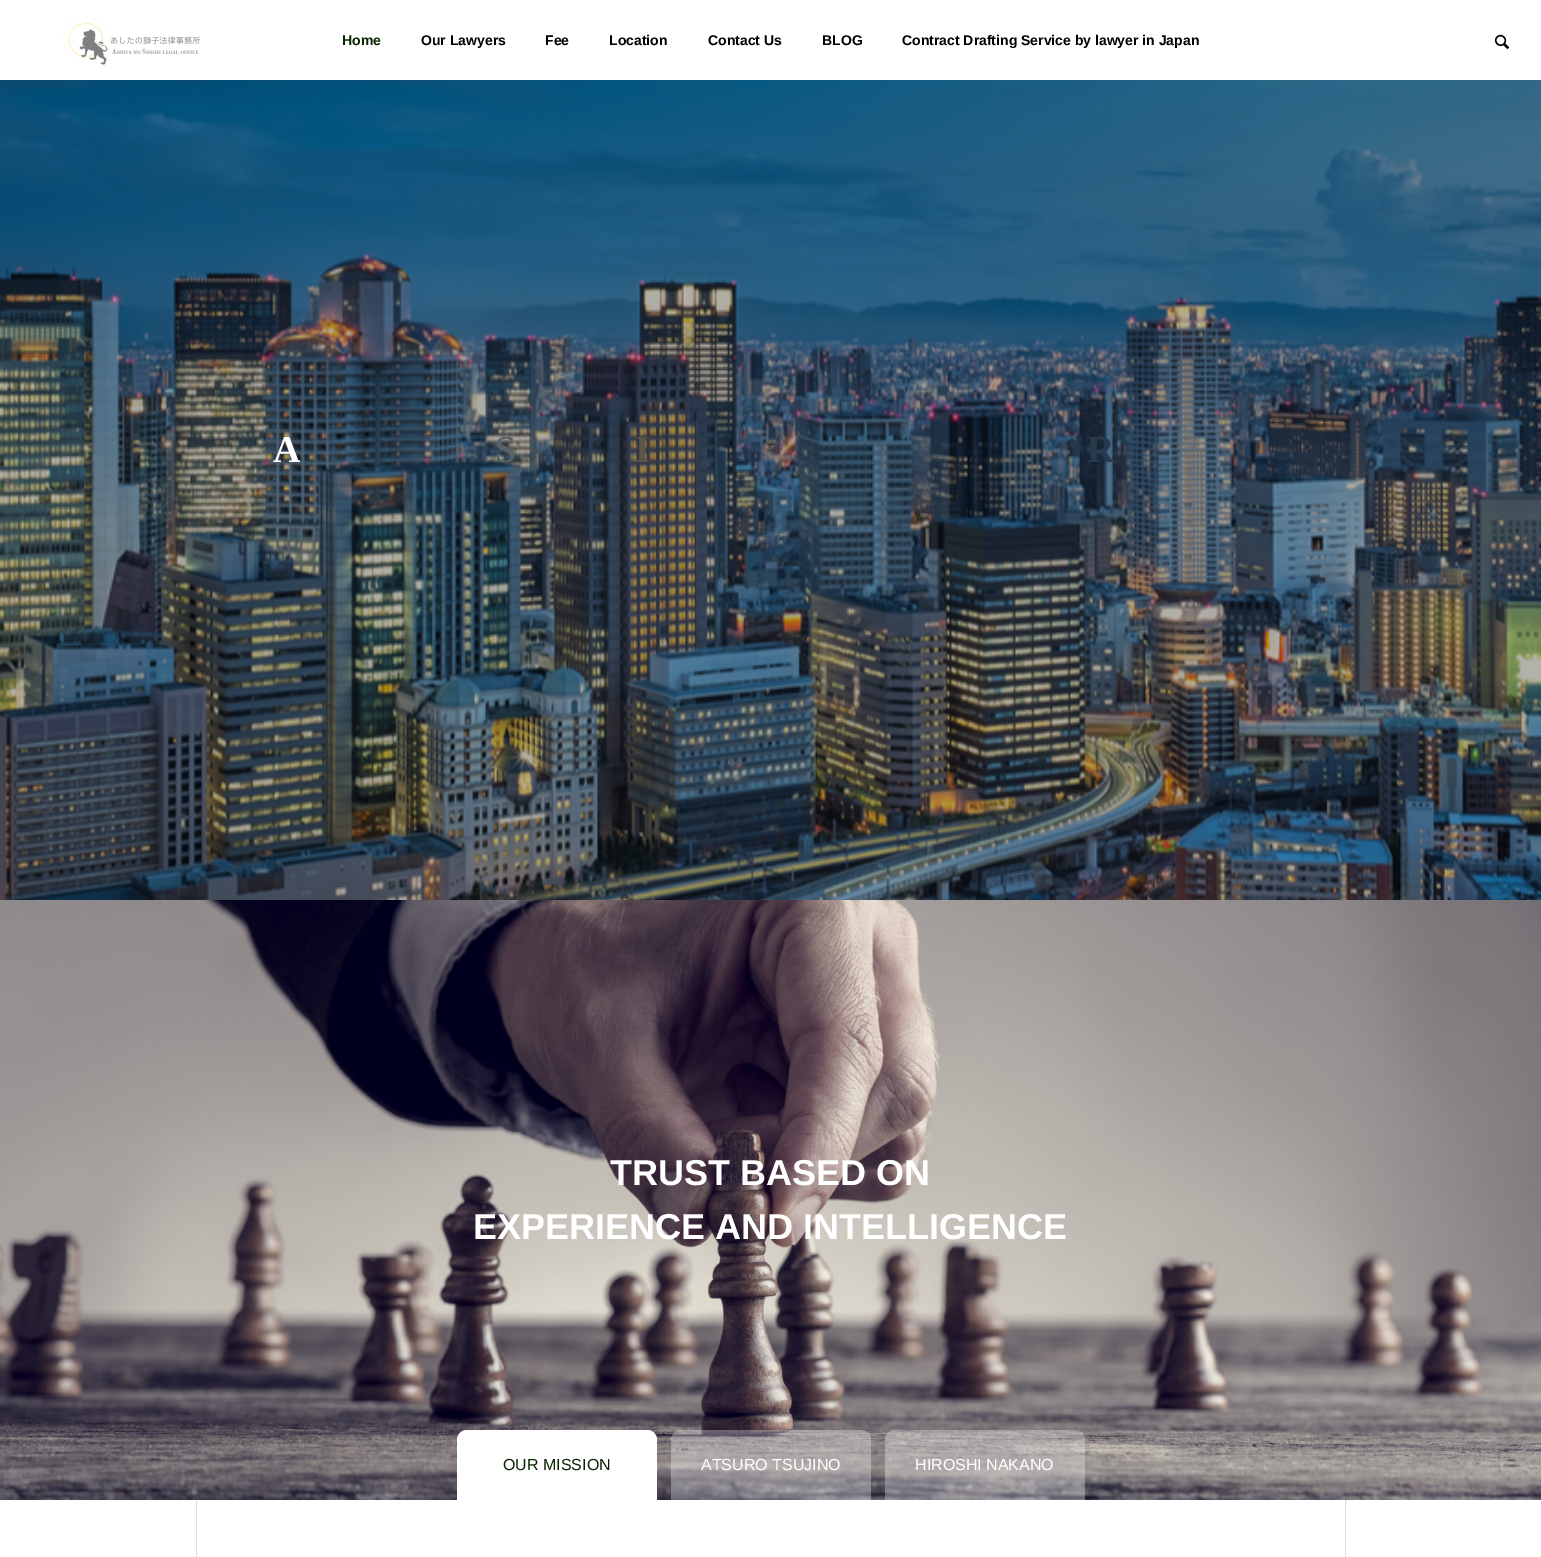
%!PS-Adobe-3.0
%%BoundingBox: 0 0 1541 1557
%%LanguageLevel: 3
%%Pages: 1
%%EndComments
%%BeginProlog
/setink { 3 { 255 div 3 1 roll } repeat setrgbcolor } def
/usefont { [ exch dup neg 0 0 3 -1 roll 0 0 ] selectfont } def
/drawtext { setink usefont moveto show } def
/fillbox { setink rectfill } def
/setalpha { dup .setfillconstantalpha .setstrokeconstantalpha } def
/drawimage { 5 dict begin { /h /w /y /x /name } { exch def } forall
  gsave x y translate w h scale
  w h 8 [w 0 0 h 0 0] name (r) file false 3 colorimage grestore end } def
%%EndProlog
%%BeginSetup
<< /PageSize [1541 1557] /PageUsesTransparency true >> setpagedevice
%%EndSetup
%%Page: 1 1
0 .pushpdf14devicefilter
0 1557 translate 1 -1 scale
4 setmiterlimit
0 0 1541 1557 255 255 255 fillbox
(assets/img1.rgb) 60 14 141 51 drawimage
(Home) 342 45 /LiberationSans-Bold 14 8 35 0 drawtext
(Our Lawyers) 421 45 /LiberationSans-Bold 14 0 0 0 drawtext
(Fee) 545 45 /LiberationSans-Bold 14 0 0 0 drawtext
(Location) 609 45 /LiberationSans-Bold 14 0 0 0 drawtext
(Contact Us) 708 45 /LiberationSans-Bold 14 0 0 0 drawtext
(BLOG) 822 45 /LiberationSans-Bold 14 0 0 0 drawtext
(Contract Drafting Service by lawyer in Japan) 902 45 /LiberationSans-Bold 14 0 0 0 drawtext
(assets/img2.rgb) 1494 34 16 15 drawimage
(assets/img3.rgb) 0 80 1541 820 drawimage
(A) 273 462 /LiberationSerif-Bold 38 255 255 255 drawtext
(S) 495 462 /LiberationSerif-Bold 38 88 97 100 drawtext
(I) 635 462 /LiberationSerif-Bold 38 92 85 72 drawtext
(R) 1087 462 /LiberationSerif-Bold 38 40 59 78 drawtext
(assets/img4.rgb) 0 900 1541 600 drawimage
(TRUST BASED ON) 610 1185 /LiberationSans-Bold 36 255 255 255 drawtext
(EXPERIENCE AND INTELLIGENCE) 473 1239 /LiberationSans-Bold 36 255 255 255 drawtext
467 1430 moveto 647 1430 lineto 652.5 1430 657 1434.5 657 1440 curveto 657 1500 lineto 457 1500 lineto 457 1440 lineto 457 1434.5 461.5 1430 467 1430 curveto closepath fill
(OUR MISSION) 503 1470 /LiberationSans-Regular 16 8 35 0 drawtext
0.3 setalpha
255 255 255 setink
681 1430 moveto 861 1430 lineto 866.5 1430 871 1434.5 871 1440 curveto 871 1500 lineto 671 1500 lineto 671 1440 lineto 671 1434.5 675.5 1430 681 1430 curveto closepath fill
1 setalpha
(ATSURO TSUJINO) 701 1470 /LiberationSans-Regular 16 255 255 255 drawtext
0.3 setalpha
895 1430 moveto 1075 1430 lineto 1080.5 1430 1085 1434.5 1085 1440 curveto 1085 1500 lineto 885 1500 lineto 885 1440 lineto 885 1434.5 889.5 1430 895 1430 curveto closepath fill
1 setalpha
(HIROSHI NAKANO) 915 1470 /LiberationSans-Regular 16 255 255 255 drawtext
1345 1500 1 57 221 221 221 fillbox
196 1500 1 57 221 221 221 fillbox
.poppdf14devicefilter showpage
%%EOF
